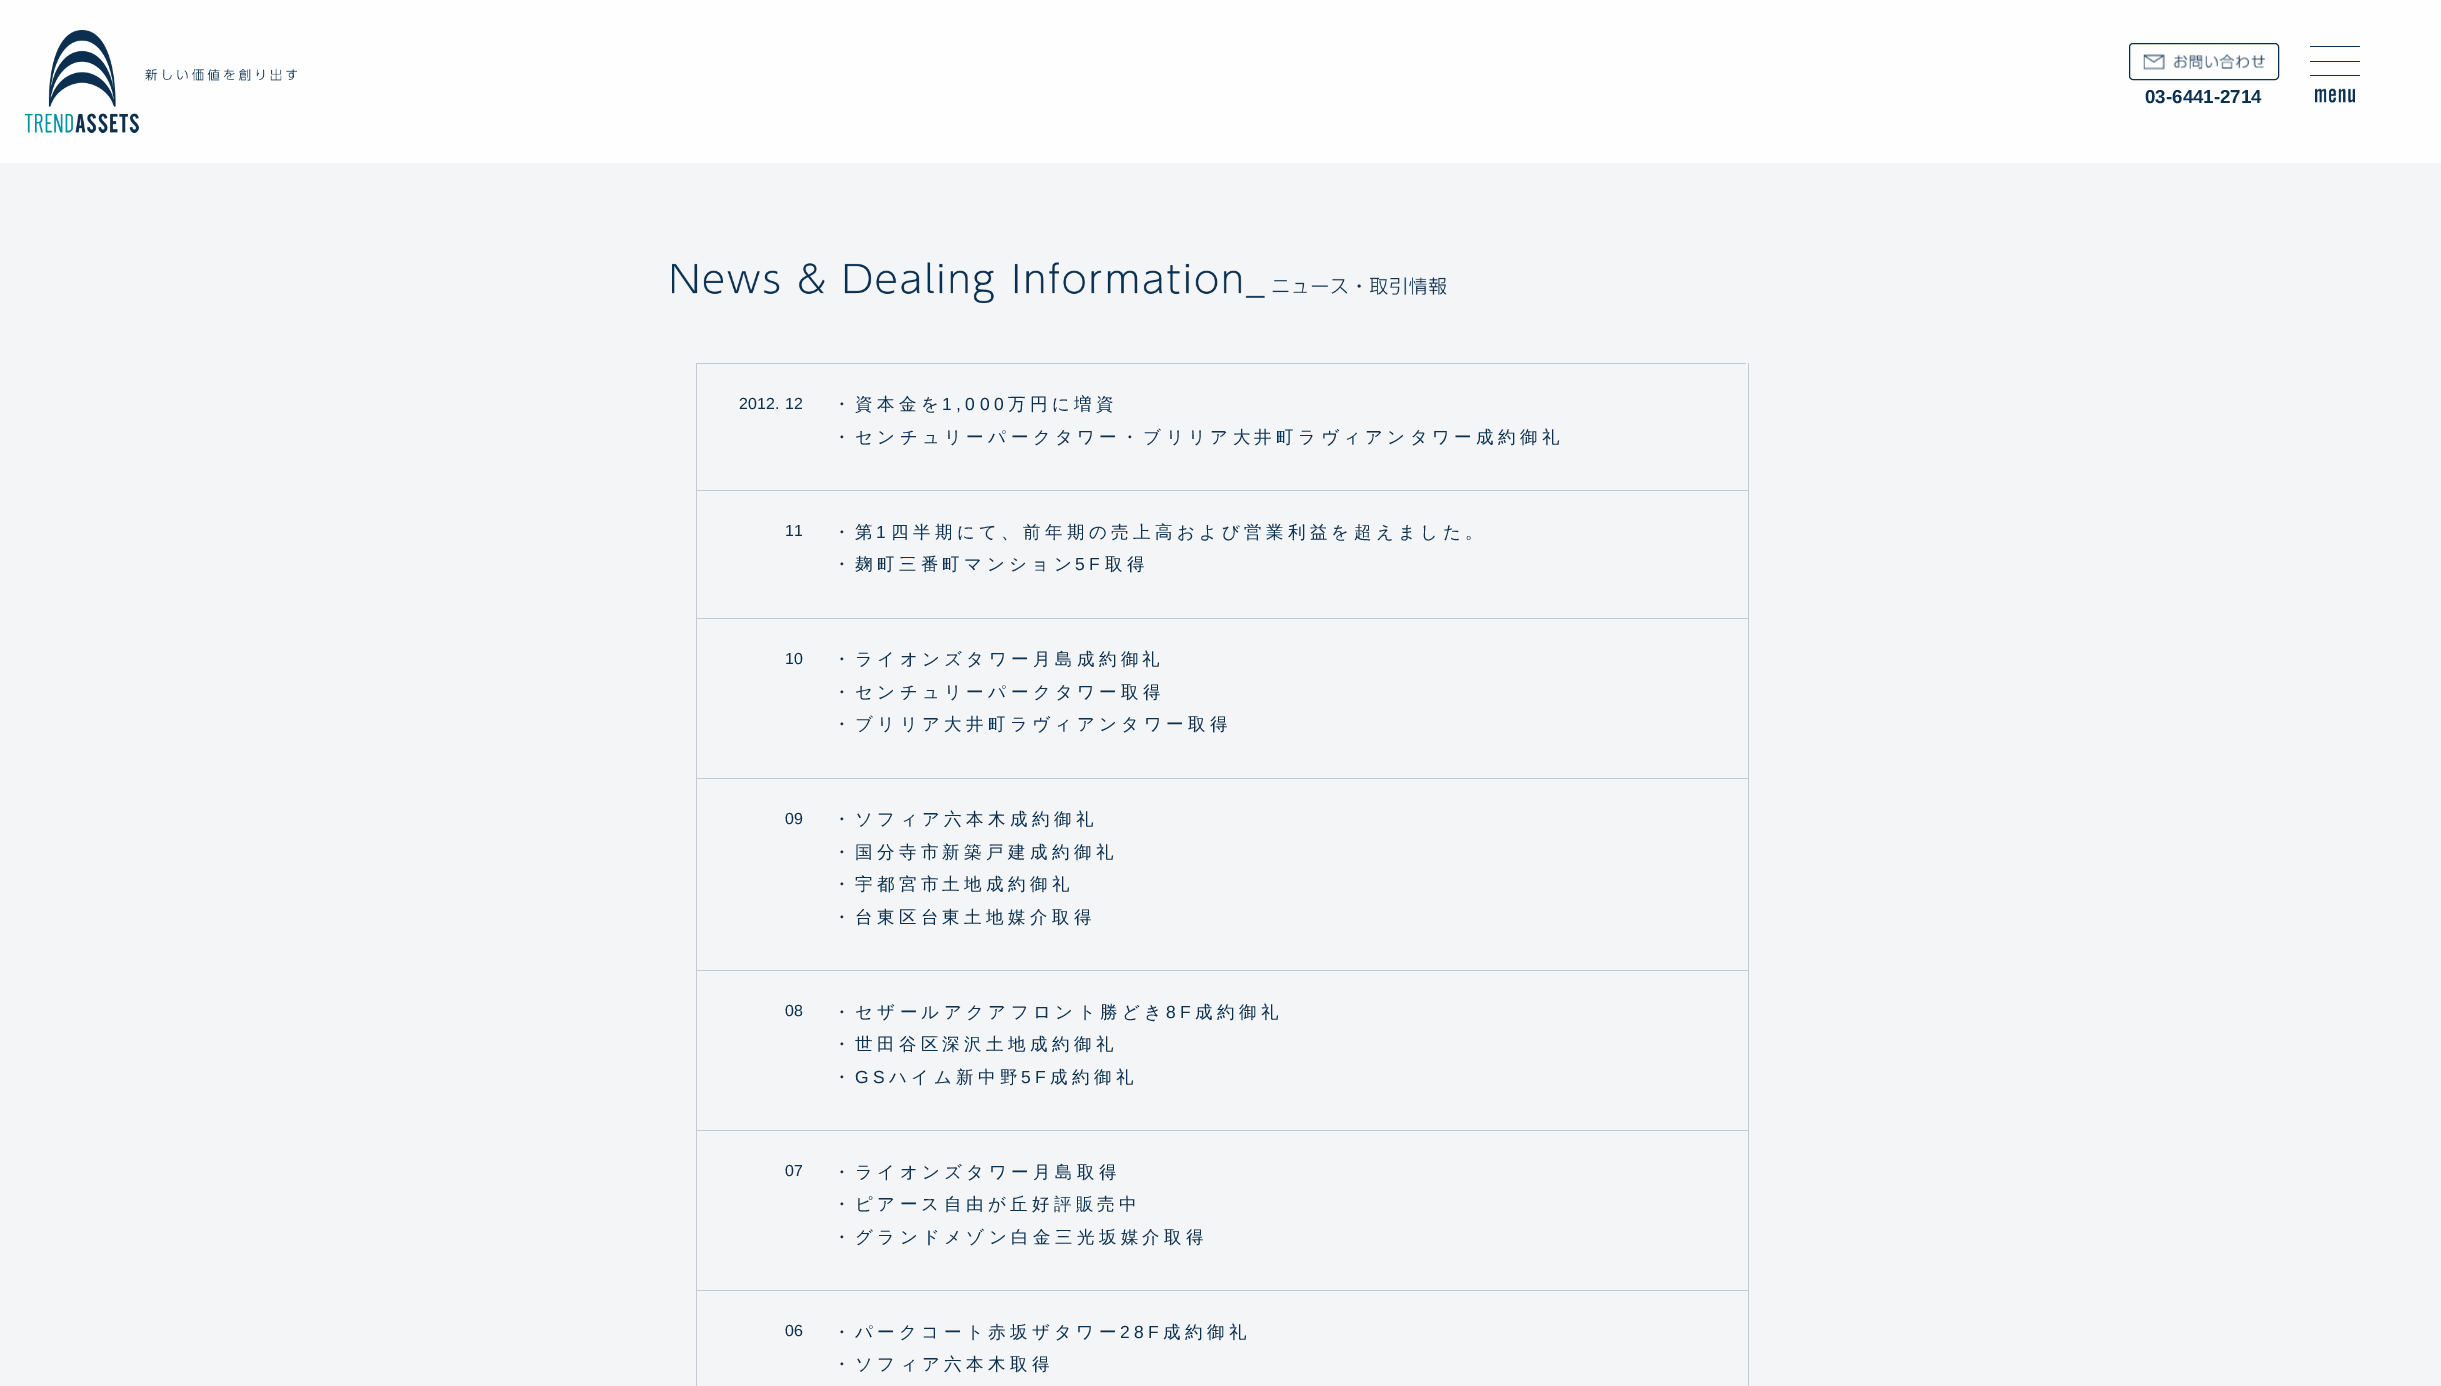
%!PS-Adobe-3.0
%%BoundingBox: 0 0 2441 1386
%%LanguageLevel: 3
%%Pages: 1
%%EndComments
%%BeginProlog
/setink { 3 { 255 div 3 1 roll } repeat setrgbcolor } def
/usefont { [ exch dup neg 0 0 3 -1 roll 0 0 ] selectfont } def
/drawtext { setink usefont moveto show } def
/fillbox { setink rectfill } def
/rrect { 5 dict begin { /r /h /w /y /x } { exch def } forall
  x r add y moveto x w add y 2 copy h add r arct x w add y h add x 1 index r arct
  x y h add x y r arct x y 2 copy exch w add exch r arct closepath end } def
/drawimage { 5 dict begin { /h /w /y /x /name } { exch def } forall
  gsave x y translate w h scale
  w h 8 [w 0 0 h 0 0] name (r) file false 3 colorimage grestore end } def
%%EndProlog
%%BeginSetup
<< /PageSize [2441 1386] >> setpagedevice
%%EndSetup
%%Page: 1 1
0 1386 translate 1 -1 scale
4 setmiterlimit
0 0 2441 1386 243 245 246 fillbox
0 0 2441 163 254 254 254 fillbox
(assets/img1.rgb) 25 30 272 103 drawimage
12 48 80 setink
2310 46 50 1 0.5 rrect fill
2310 61 50 1 0.5 rrect fill
2310 75 50 1 0.5 rrect fill
(assets/img2.rgb) 2143 54 122 16 drawimage
2129.5 43.5 149 36 3.5 rrect stroke
(03-6441-2714) 2145 103 /LiberationSans-Bold 18.75 12 48 80 drawtext
(assets/img3.rgb) 2315 88 40 15 drawimage
(assets/img4.rgb) 672 262 775 41 drawimage
696 363 1050 1 194 203 211 fillbox
(2012.) 739 409 /LiberationSans-Regular 16 12 48 80 drawtext
1748 363 1 128 194 203 211 fillbox
696 490 1053 1 194 203 211 fillbox
696 363 1 128 194 203 211 fillbox
(12) 785 409 /LiberationSans-Regular 16 12 48 80 drawtext
/WenQuanYiZenHei-Medium 17.5 usefont
833 410 moveto 4.4 0 (・資本金を) ashow
/LiberationSans-Regular 17.5 usefont
942 410 moveto 4.4 0 (1,000) ashow
/WenQuanYiZenHei-Medium 17.5 usefont
1008 410 moveto 4.4 0 (万円に増資) ashow
833 443 moveto 4.4 0 (・センチュリーパークタワー・ブリリア大井町ラヴィアンタワー成約御礼) ashow
1748 490 1 129 194 203 211 fillbox
696 618 1053 1 194 203 211 fillbox
696 490 1 129 194 203 211 fillbox
(11) 785 536 /LiberationSans-Regular 16 12 48 80 drawtext
/WenQuanYiZenHei-Medium 17.5 usefont
833 538 moveto 4.4 0 (・第) ashow
/LiberationSans-Regular 17.5 usefont
876 538 moveto 4.4 0 (1) ashow
/WenQuanYiZenHei-Medium 17.5 usefont
891 538 moveto 4.4 0 (四半期にて、前年期の売上高および営業利益を超えました。) ashow
833 570 moveto 4.4 0 (・麹町三番町マンション) ashow
/LiberationSans-Regular 17.5 usefont
1075 570 moveto 4.4 0 (5F) ashow
/WenQuanYiZenHei-Medium 17.5 usefont
1105 570 moveto 4.4 0 (取得) ashow
1748 618 1 161 194 203 211 fillbox
696 778 1053 1 194 203 211 fillbox
696 618 1 161 194 203 211 fillbox
(10) 785 664 /LiberationSans-Regular 16 12 48 80 drawtext
/WenQuanYiZenHei-Medium 17.5 usefont
833 665 moveto 4.4 0 (・ライオンズタワー月島成約御礼) ashow
833 698 moveto 4.4 0 (・センチュリーパークタワー取得) ashow
833 730 moveto 4.4 0 (・ブリリア大井町ラヴィアンタワー取得) ashow
1748 778 1 193 194 203 211 fillbox
696 970 1053 1 194 203 211 fillbox
696 778 1 193 194 203 211 fillbox
(09) 785 824 /LiberationSans-Regular 16 12 48 80 drawtext
/WenQuanYiZenHei-Medium 17.5 usefont
833 825 moveto 4.4 0 (・ソフィア六本木成約御礼) ashow
833 858 moveto 4.4 0 (・国分寺市新築戸建成約御礼) ashow
833 890 moveto 4.4 0 (・宇都宮市土地成約御礼) ashow
833 923 moveto 4.4 0 (・台東区台東土地媒介取得) ashow
1748 970 1 161 194 203 211 fillbox
696 1130 1053 1 194 203 211 fillbox
696 970 1 161 194 203 211 fillbox
(08) 785 1016 /LiberationSans-Regular 16 12 48 80 drawtext
/WenQuanYiZenHei-Medium 17.5 usefont
833 1018 moveto 4.4 0 (・セザールアクアフロント勝どき) ashow
/LiberationSans-Regular 17.5 usefont
1166 1018 moveto 4.4 0 (8F) ashow
/WenQuanYiZenHei-Medium 17.5 usefont
1195 1018 moveto 4.4 0 (成約御礼) ashow
833 1050 moveto 4.4 0 (・世田谷区深沢土地成約御礼) ashow
833 1083 moveto 4.4 0 (・) ashow
/LiberationSans-Regular 17.5 usefont
855 1083 moveto 4.4 0 (GS) ashow
/WenQuanYiZenHei-Medium 17.5 usefont
889 1083 moveto 4.4 0 (ハイム新中野) ashow
/LiberationSans-Regular 17.5 usefont
1021 1083 moveto 4.4 0 (5F) ashow
/WenQuanYiZenHei-Medium 17.5 usefont
1050 1083 moveto 4.4 0 (成約御礼) ashow
1748 1130 1 161 194 203 211 fillbox
696 1290 1053 1 194 203 211 fillbox
696 1130 1 256 194 203 211 fillbox
(07) 785 1176 /LiberationSans-Regular 16 12 48 80 drawtext
/WenQuanYiZenHei-Medium 17.5 usefont
833 1178 moveto 4.4 0 (・ライオンズタワー月島取得) ashow
833 1210 moveto 4.4 0 (・ピアース自由が丘好評販売中) ashow
833 1243 moveto 4.4 0 (・グランドメゾン白金三光坂媒介取得) ashow
1748 1290 1 96 194 203 211 fillbox
(06) 785 1336 /LiberationSans-Regular 16 12 48 80 drawtext
/WenQuanYiZenHei-Medium 17.5 usefont
833 1338 moveto 4.4 0 (・パークコート赤坂ザタワー) ashow
/LiberationSans-Regular 17.5 usefont
1120 1338 moveto 4.4 0 (28F) ashow
/WenQuanYiZenHei-Medium 17.5 usefont
1163 1338 moveto 4.4 0 (成約御礼) ashow
833 1370 moveto 4.4 0 (・ソフィア六本木取得) ashow
showpage
%%EOF
